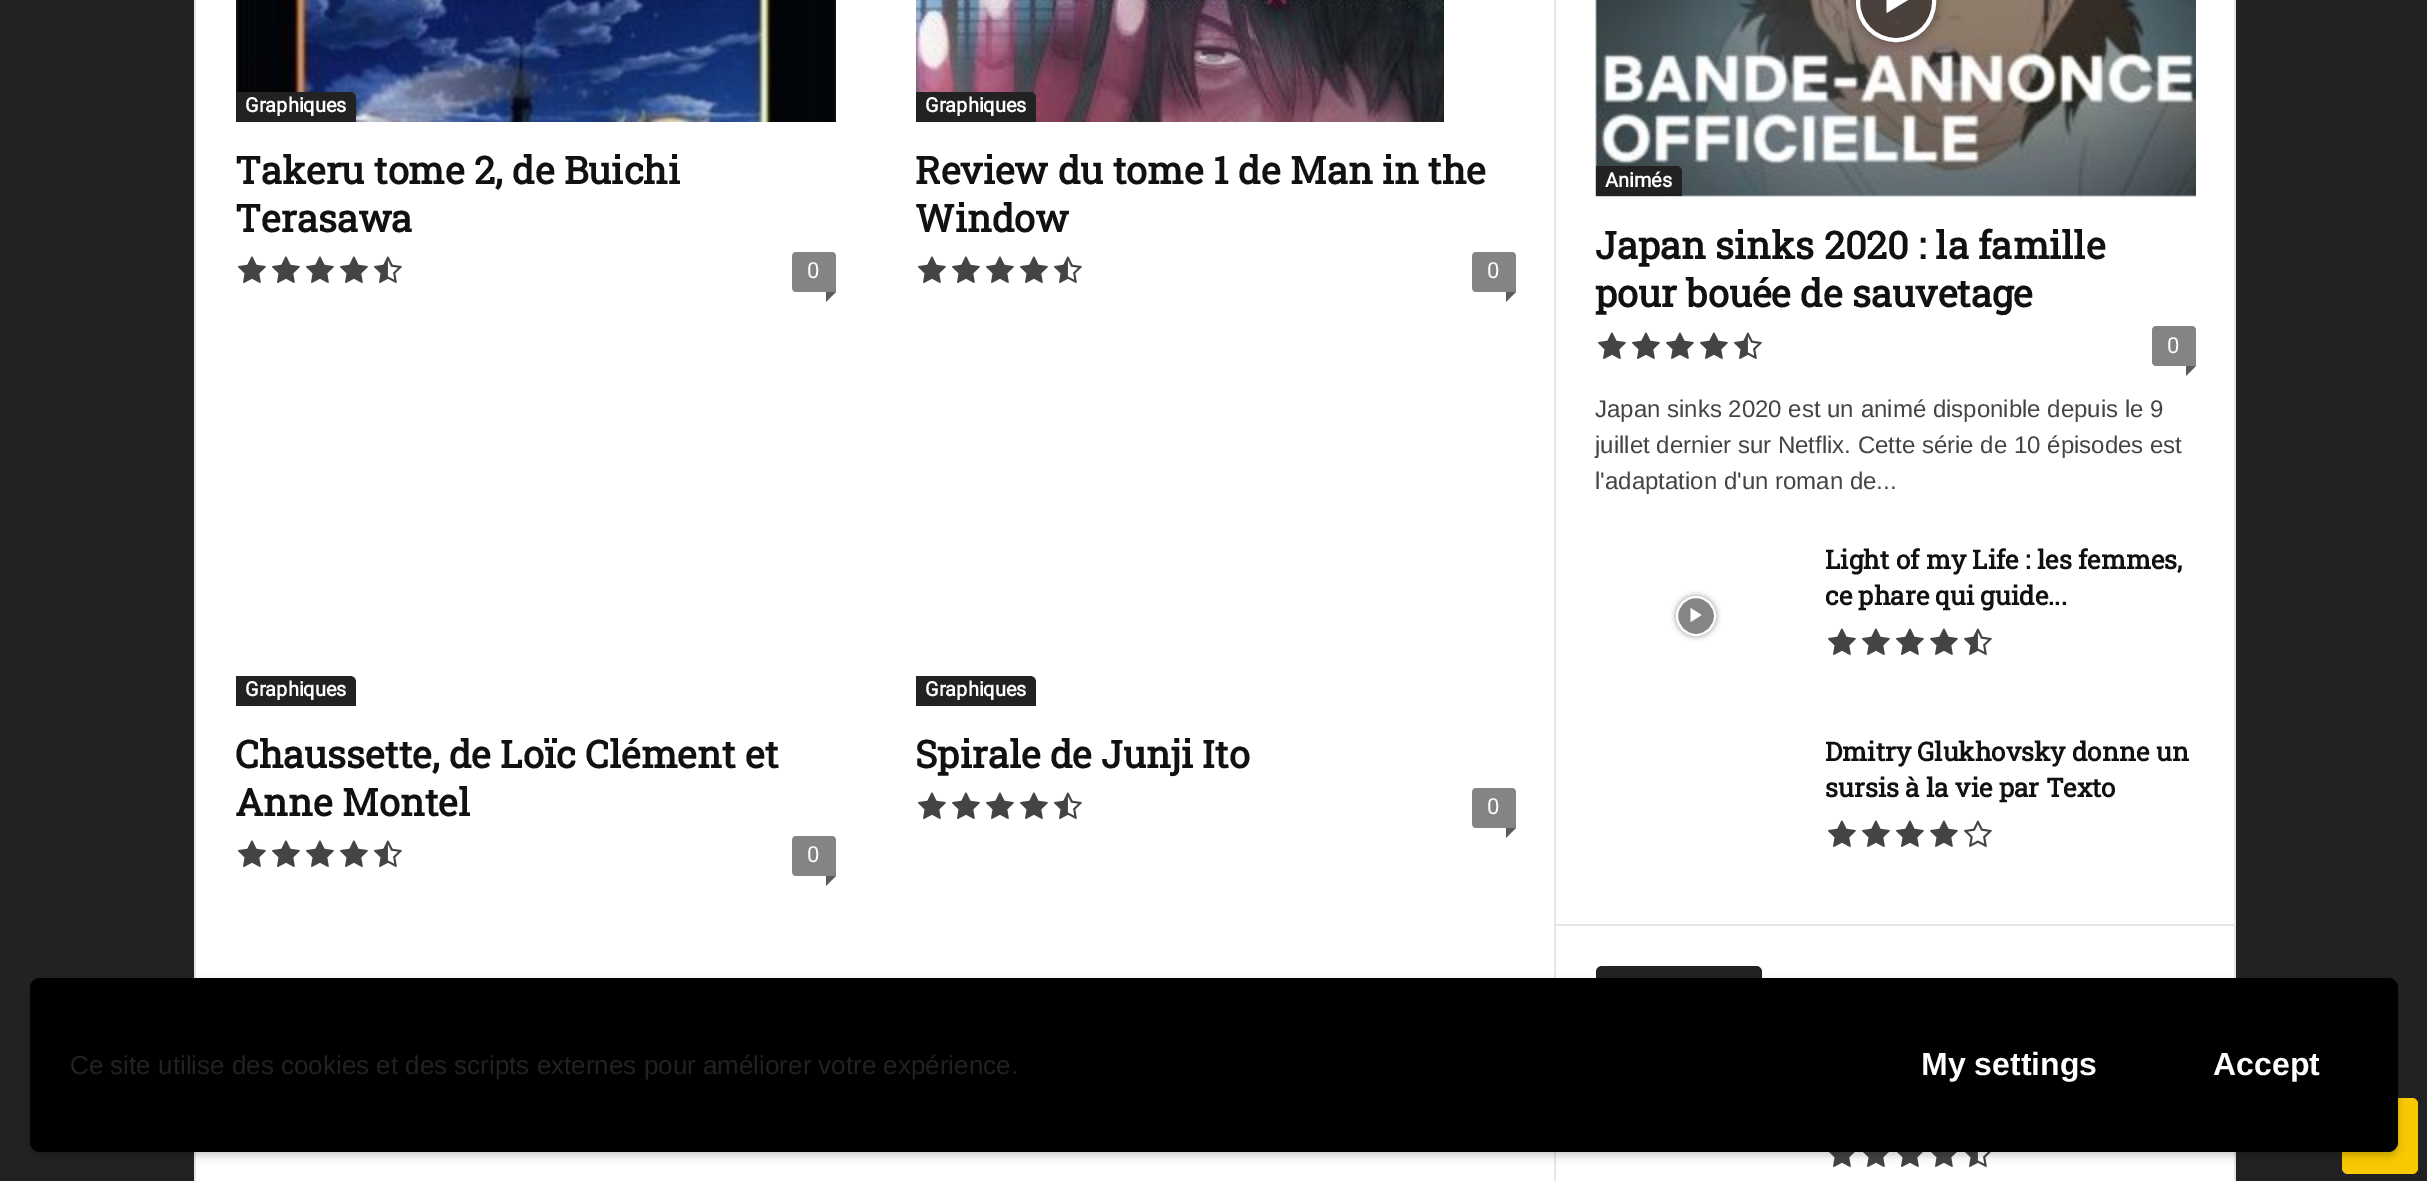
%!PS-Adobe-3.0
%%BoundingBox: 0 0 2427 1181
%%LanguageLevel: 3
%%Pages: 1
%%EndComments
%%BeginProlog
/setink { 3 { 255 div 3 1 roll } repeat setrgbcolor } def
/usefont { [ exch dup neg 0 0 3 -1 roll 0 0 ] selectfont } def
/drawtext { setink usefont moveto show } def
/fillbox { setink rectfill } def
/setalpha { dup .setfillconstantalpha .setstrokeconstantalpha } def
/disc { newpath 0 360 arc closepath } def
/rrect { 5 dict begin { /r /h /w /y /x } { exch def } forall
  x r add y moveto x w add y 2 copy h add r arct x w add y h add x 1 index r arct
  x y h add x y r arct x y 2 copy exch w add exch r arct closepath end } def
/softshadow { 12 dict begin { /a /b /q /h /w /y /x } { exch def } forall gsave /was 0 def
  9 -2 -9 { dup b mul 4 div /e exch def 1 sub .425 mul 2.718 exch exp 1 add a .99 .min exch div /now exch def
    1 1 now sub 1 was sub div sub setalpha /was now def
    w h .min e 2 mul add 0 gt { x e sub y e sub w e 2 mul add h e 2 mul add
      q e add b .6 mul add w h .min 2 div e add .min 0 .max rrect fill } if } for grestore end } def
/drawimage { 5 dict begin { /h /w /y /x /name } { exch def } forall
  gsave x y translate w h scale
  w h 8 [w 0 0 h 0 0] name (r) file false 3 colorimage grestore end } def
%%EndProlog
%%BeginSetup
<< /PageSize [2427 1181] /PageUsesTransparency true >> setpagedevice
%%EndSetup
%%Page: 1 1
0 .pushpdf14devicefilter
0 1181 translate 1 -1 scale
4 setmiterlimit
0 0 2427 1181 34 34 34 fillbox
196 0 2038 1181 255 255 255 fillbox
194 0 2 1181 230 230 230 fillbox
(assets/img1.rgb) 236 0 600 122 drawimage
34 34 34 setink
236 92 moveto 350 92 lineto 353.5 92 356 94.5 356 98 curveto 356 122 lineto 236 122 lineto closepath fill
(Graphiques) 245 112 /Roboto-Bold 20 255 255 255 drawtext
(Takeru tome 2, de Buichi) 235 184 /RobotoSlab-Bold 38 17 17 17 drawtext
(Terasawa) 235 232 /RobotoSlab-Bold 38 17 17 17 drawtext
(assets/img2.rgb) 238 256 28 27 drawimage
(assets/img2.rgb) 272 256 28 27 drawimage
(assets/img2.rgb) 306 256 28 27 drawimage
(assets/img2.rgb) 340 256 28 27 drawimage
(assets/img3.rgb) 374 256 28 27 drawimage
132 132 132 setink
796 252 moveto 832 252 lineto 834 252 836 254 836 256 curveto 836 292 lineto 796 292 lineto 794 292 792 290 792 288 curveto 792 256 lineto 792 254 794 252 796 252 curveto closepath fill
(0) 807 278 /Roboto-Regular 22 255 255 255 drawtext
91 91 91 setink
826 292 moveto 836 292 lineto 826 302 lineto closepath fill
(assets/img4.rgb) 916 0 528 122 drawimage
34 34 34 setink
916 92 moveto 1030 92 lineto 1033.5 92 1036 94.5 1036 98 curveto 1036 122 lineto 916 122 lineto closepath fill
(Graphiques) 925 112 /Roboto-Bold 20 255 255 255 drawtext
(Review du tome 1 de Man in the) 915 184 /RobotoSlab-Bold 38 17 17 17 drawtext
(Window) 915 232 /RobotoSlab-Bold 38 17 17 17 drawtext
(assets/img2.rgb) 918 256 28 27 drawimage
(assets/img2.rgb) 952 256 28 27 drawimage
(assets/img2.rgb) 986 256 28 27 drawimage
(assets/img2.rgb) 1020 256 28 27 drawimage
(assets/img3.rgb) 1054 256 28 27 drawimage
132 132 132 setink
1476 252 moveto 1512 252 lineto 1514 252 1516 254 1516 256 curveto 1516 292 lineto 1476 292 lineto 1474 292 1472 290 1472 288 curveto 1472 256 lineto 1472 254 1474 252 1476 252 curveto closepath fill
(0) 1487 278 /Roboto-Regular 22 255 255 255 drawtext
91 91 91 setink
1506 292 moveto 1516 292 lineto 1506 302 lineto closepath fill
34 34 34 setink
236 676 moveto 350 676 lineto 353.5 676 356 678.5 356 682 curveto 356 706 lineto 236 706 lineto closepath fill
(Graphiques) 245 696 /Roboto-Bold 20 255 255 255 drawtext
(Chaussette, de Loïc Clément et) 235 768 /RobotoSlab-Bold 38 17 17 17 drawtext
(Anne Montel) 235 816 /RobotoSlab-Bold 38 17 17 17 drawtext
(assets/img2.rgb) 238 840 28 27 drawimage
(assets/img2.rgb) 272 840 28 27 drawimage
(assets/img2.rgb) 306 840 28 27 drawimage
(assets/img2.rgb) 340 840 28 27 drawimage
(assets/img3.rgb) 374 840 28 27 drawimage
132 132 132 setink
796 836 moveto 832 836 lineto 834 836 836 838 836 840 curveto 836 876 lineto 796 876 lineto 794 876 792 874 792 872 curveto 792 840 lineto 792 838 794 836 796 836 curveto closepath fill
(0) 807 862 /Roboto-Regular 22 255 255 255 drawtext
91 91 91 setink
826 876 moveto 836 876 lineto 826 886 lineto closepath fill
34 34 34 setink
916 676 moveto 1030 676 lineto 1033.5 676 1036 678.5 1036 682 curveto 1036 706 lineto 916 706 lineto closepath fill
(Graphiques) 925 696 /Roboto-Bold 20 255 255 255 drawtext
(Spirale de Junji Ito) 915 768 /RobotoSlab-Bold 38 17 17 17 drawtext
(assets/img2.rgb) 918 792 28 27 drawimage
(assets/img2.rgb) 952 792 28 27 drawimage
(assets/img2.rgb) 986 792 28 27 drawimage
(assets/img2.rgb) 1020 792 28 27 drawimage
(assets/img3.rgb) 1054 792 28 27 drawimage
132 132 132 setink
1476 788 moveto 1512 788 lineto 1514 788 1516 790 1516 792 curveto 1516 828 lineto 1476 828 lineto 1474 828 1472 826 1472 824 curveto 1472 792 lineto 1472 790 1474 788 1476 788 curveto closepath fill
(0) 1487 814 /Roboto-Regular 22 255 255 255 drawtext
91 91 91 setink
1506 828 moveto 1516 828 lineto 1506 838 lineto closepath fill
1554 0 2 1181 230 230 230 fillbox
(assets/img5.rgb) 1595 0 601 197 drawimage
gsave
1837 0 moveto 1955 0 lineto 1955 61 lineto 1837 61 lineto closepath 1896 -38 moveto 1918 -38 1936 -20 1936 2 curveto 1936 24 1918 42 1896 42 curveto 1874 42 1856 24 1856 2 curveto 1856 -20 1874 -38 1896 -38 curveto closepath eoclip newpath
0 0 0 setink
1856 -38 80 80 40 6 0.4 softshadow
grestore
0.48 setalpha
0 0 0 setink
1896 2 38 disc fill
1 setalpha
255 255 255 setink
4 setlinewidth
1896 2 38 disc stroke
1886.5 -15 moveto 1886.5 13 lineto 1909.5 -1 lineto closepath fill
34 34 34 setink
1596 166 moveto 1676 166 lineto 1679.5 166 1682 168.5 1682 172 curveto 1682 196 lineto 1596 196 lineto closepath fill
(Animés) 1605 187 /Roboto-Bold 20 255 255 255 drawtext
(Japan sinks 2020 : la famille) 1595 259 /RobotoSlab-Bold 38 17 17 17 drawtext
(pour bouée de sauvetage) 1595 307 /RobotoSlab-Bold 38 17 17 17 drawtext
(assets/img2.rgb) 1598 332 28 27 drawimage
(assets/img2.rgb) 1632 332 28 27 drawimage
(assets/img2.rgb) 1666 332 28 27 drawimage
(assets/img2.rgb) 1700 332 28 27 drawimage
(assets/img3.rgb) 1734 332 28 27 drawimage
132 132 132 setink
2156 326 moveto 2192 326 lineto 2194 326 2196 328 2196 330 curveto 2196 366 lineto 2156 366 lineto 2154 366 2152 364 2152 362 curveto 2152 330 lineto 2152 328 2154 326 2156 326 curveto closepath fill
(0) 2167 353 /Roboto-Regular 22 255 255 255 drawtext
91 91 91 setink
2186 366 moveto 2196 366 lineto 2186 376 lineto closepath fill
(Japan sinks 2020 est un animé disponible depuis le 9) 1595 417 /Arimo-Regular 24 68 68 68 drawtext
(juillet dernier sur Netflix. Cette série de 10 épisodes est) 1595 453 /Arimo-Regular 24 68 68 68 drawtext
(l'adaptation d'un roman de...) 1595 489 /Arimo-Regular 24 68 68 68 drawtext
gsave
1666 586 moveto 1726 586 lineto 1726 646 lineto 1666 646 lineto closepath 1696 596 moveto 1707 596 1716 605 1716 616 curveto 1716 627 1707 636 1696 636 curveto 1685 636 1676 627 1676 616 curveto 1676 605 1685 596 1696 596 curveto closepath eoclip newpath
0 0 0 setink
1676 596 40 40 20 3 0.4 softshadow
grestore
0.48 setalpha
0 0 0 setink
1696 616 19 disc fill
1 setalpha
255 255 255 setink
2 setlinewidth
1696 616 19 disc stroke
1690.5 608 moveto 1690.5 622 lineto 1701.5 615 lineto closepath fill
(Light of my Life : les femmes,) 1825 569 /RobotoSlab-Bold 26 17 17 17 drawtext
(ce phare qui guide...) 1825 605 /RobotoSlab-Bold 26 17 17 17 drawtext
(assets/img2.rgb) 1828 628 28 27 drawimage
(assets/img2.rgb) 1862 628 28 27 drawimage
(assets/img2.rgb) 1896 628 28 27 drawimage
(assets/img2.rgb) 1930 628 28 27 drawimage
(assets/img3.rgb) 1964 628 28 27 drawimage
(Dmitry Glukhovsky donne un) 1825 761 /RobotoSlab-Bold 26 17 17 17 drawtext
(sursis à la vie par Texto) 1825 797 /RobotoSlab-Bold 26 17 17 17 drawtext
(assets/img2.rgb) 1828 820 28 27 drawimage
(assets/img2.rgb) 1862 820 28 27 drawimage
(assets/img2.rgb) 1896 820 28 27 drawimage
(assets/img2.rgb) 1930 820 28 27 drawimage
(assets/img6.rgb) 1964 820 28 27 drawimage
1556 924 678 2 230 230 230 fillbox
34 34 34 setink
1596 966 166 42 6 rrect fill
(assets/img7.rgb) 1829 1152 26 15 drawimage
(assets/img7.rgb) 1863 1152 26 15 drawimage
(assets/img7.rgb) 1897 1152 26 15 drawimage
(assets/img7.rgb) 1931 1152 26 15 drawimage
(assets/img8.rgb) 1965 1152 26 15 drawimage
2234 0 2 1181 230 230 230 fillbox
248 201 0 setink
2342 1098 76 76 6 rrect fill
(assets/img9.rgb) 2397 1142 1 1 drawimage
0 0 0 setink
30 982 2368 174 10 4 0.2 softshadow
30 978 2368 174 10 rrect fill
(Ce site utilise des cookies et des scripts externes pour améliorer votre expérience.) 70 1074 /LiberationSans-Regular 26 34 34 34 drawtext
(My settings) 1921 1075 /LiberationSans-Bold 32 255 255 255 drawtext
(Accept) 2213 1075 /LiberationSans-Bold 32 255 255 255 drawtext
.poppdf14devicefilter showpage
%%EOF
